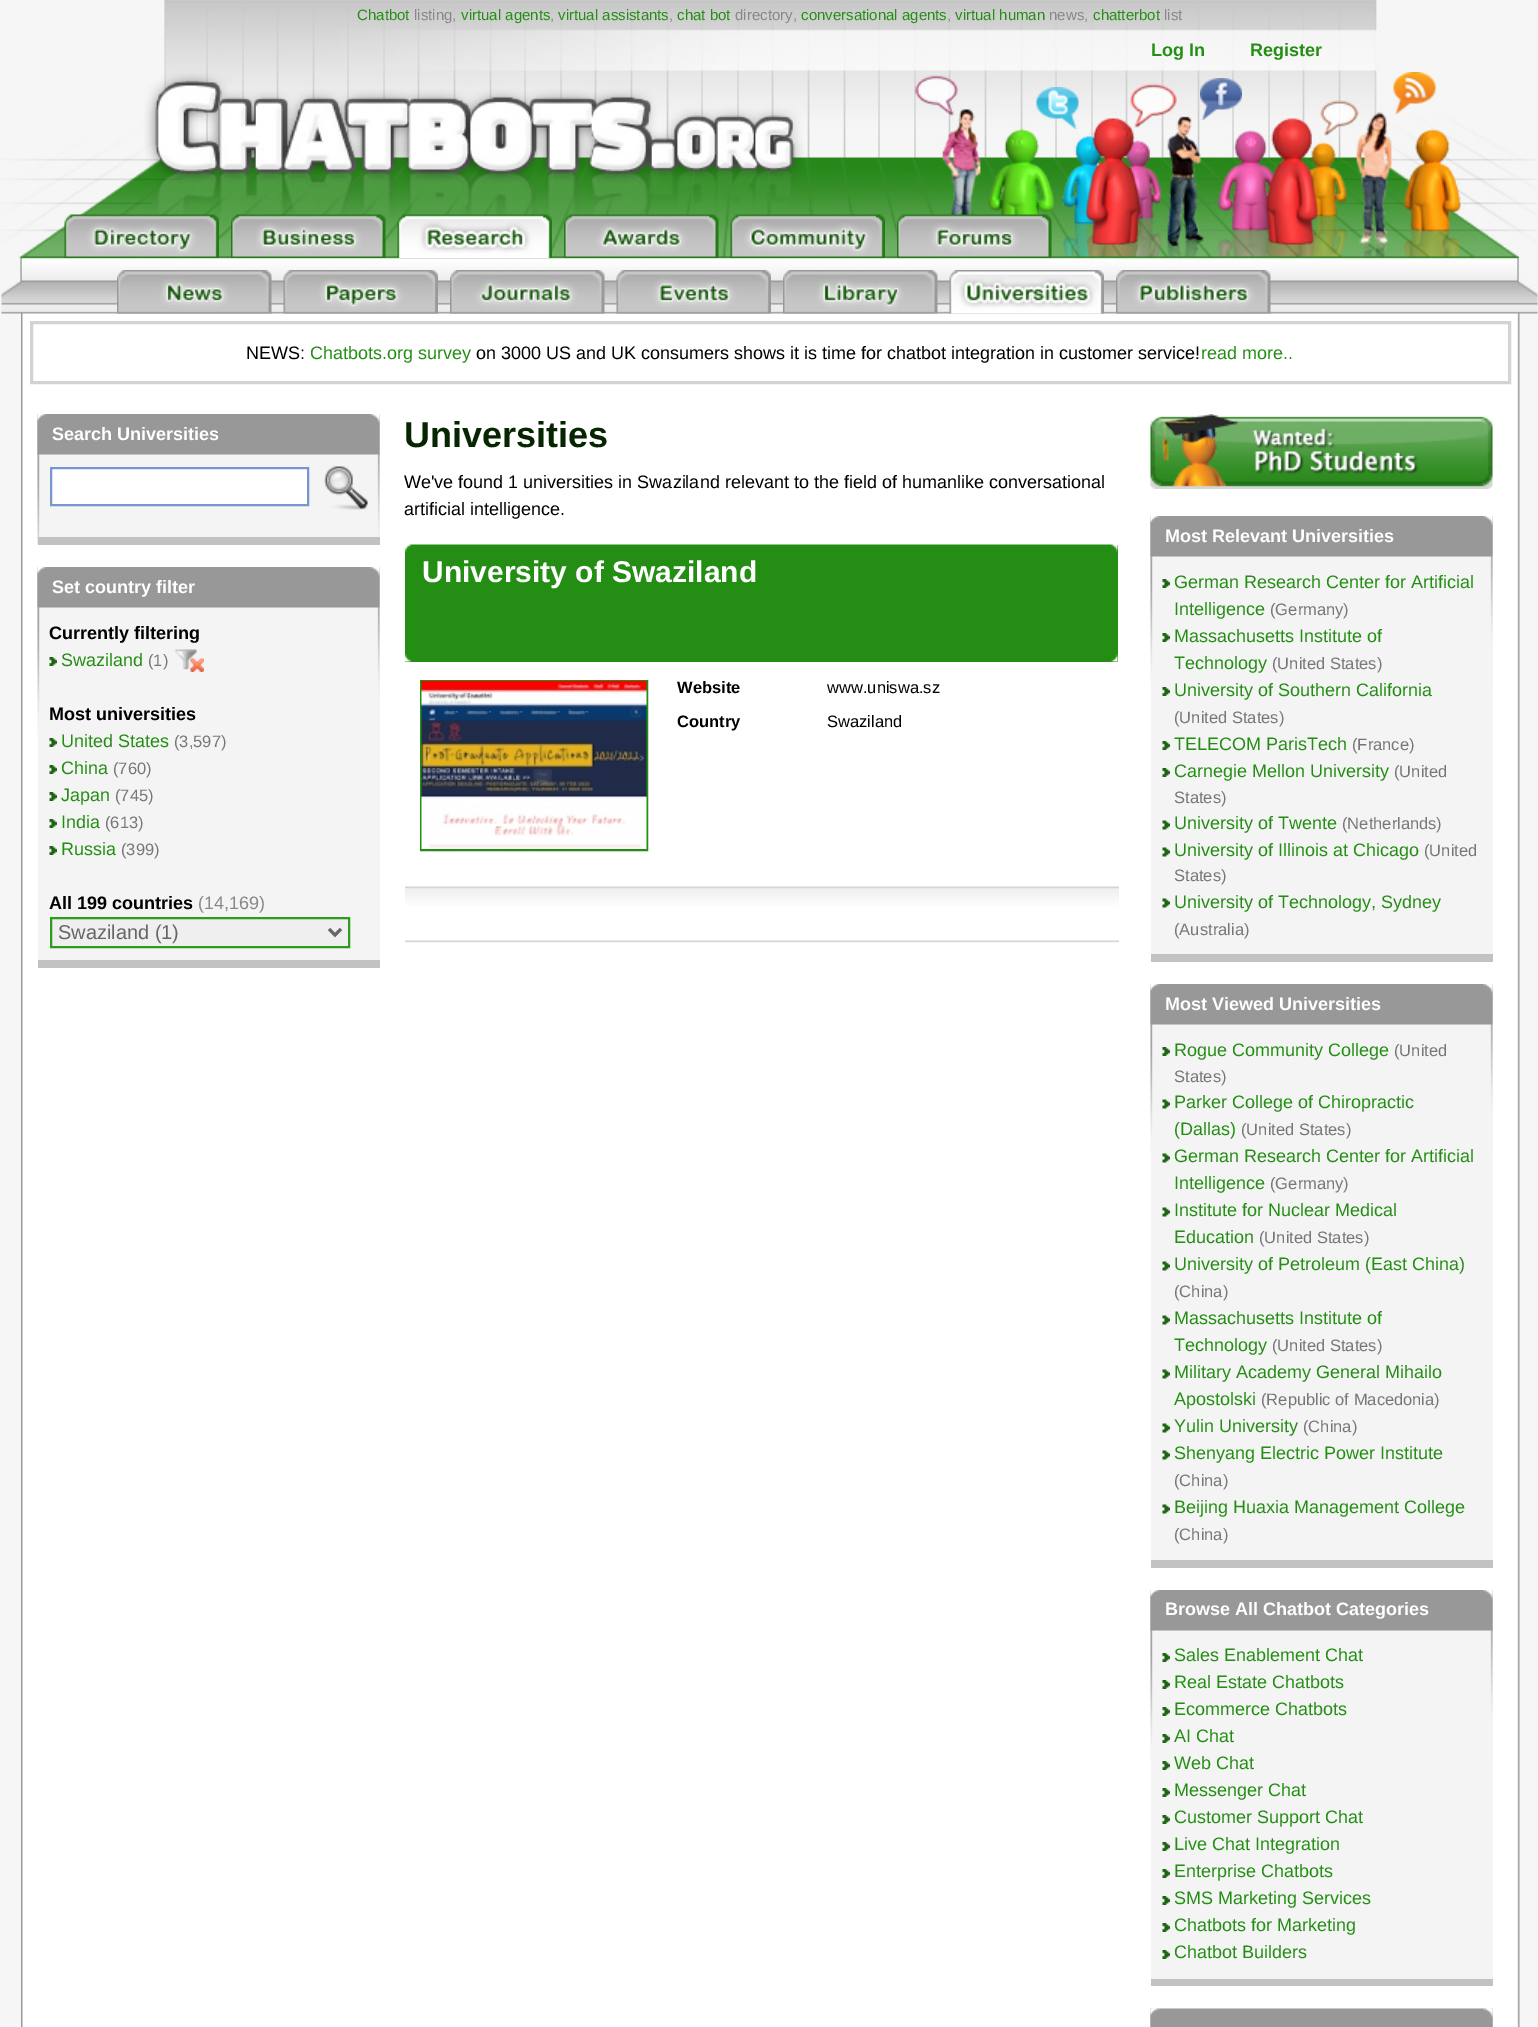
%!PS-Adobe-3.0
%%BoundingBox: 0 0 1538 2027
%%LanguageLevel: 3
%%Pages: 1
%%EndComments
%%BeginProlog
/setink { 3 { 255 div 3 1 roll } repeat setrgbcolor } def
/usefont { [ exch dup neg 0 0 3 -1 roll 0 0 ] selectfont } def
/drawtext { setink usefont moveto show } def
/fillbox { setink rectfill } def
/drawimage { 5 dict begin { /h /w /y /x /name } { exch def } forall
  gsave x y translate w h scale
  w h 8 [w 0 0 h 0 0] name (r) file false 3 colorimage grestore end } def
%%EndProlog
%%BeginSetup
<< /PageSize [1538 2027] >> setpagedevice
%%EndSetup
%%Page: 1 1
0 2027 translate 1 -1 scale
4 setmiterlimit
0 0 1538 2027 246 246 246 fillbox
(assets/img1.rgb) 21 313 1499 1714 drawimage
(assets/img2.rgb) 1 0 1537 314 drawimage
(Chatbot) 357 20 /LiberationSans-Regular 15 36 142 20 drawtext
(listing,) 414 20 /LiberationSans-Regular 15 136 136 136 drawtext
(virtual agents) 461 20 /LiberationSans-Regular 15 36 142 20 drawtext
(,) 550 20 /LiberationSans-Regular 15 136 136 136 drawtext
(virtual assistants) 558 20 /LiberationSans-Regular 15 36 142 20 drawtext
(,) 669 20 /LiberationSans-Regular 15 136 136 136 drawtext
(chat bot) 677 20 /LiberationSans-Regular 15 36 142 20 drawtext
(directory,) 735 20 /LiberationSans-Regular 15 136 136 136 drawtext
(conversational agents) 801 20 /LiberationSans-Regular 15 36 142 20 drawtext
(,) 947 20 /LiberationSans-Regular 15 136 136 136 drawtext
(virtual human) 955 20 /LiberationSans-Regular 15 36 142 20 drawtext
(news,) 1049 20 /LiberationSans-Regular 15 136 136 136 drawtext
(chatterbot) 1093 20 /LiberationSans-Regular 15 36 142 20 drawtext
(list) 1164 20 /LiberationSans-Regular 15 136 136 136 drawtext
(Log In) 1151 56 /LiberationSans-Bold 18 36 142 20 drawtext
(Register) 1250 56 /LiberationSans-Bold 18 36 142 20 drawtext
(assets/img3.rgb) 1036 87 43 42 drawimage
(assets/img4.rgb) 1200 78 42 42 drawimage
(assets/img5.rgb) 1393 72 43 42 drawimage
(assets/img6.rgb) 64 214 155 44 drawimage
(assets/img7.rgb) 231 214 155 44 drawimage
(assets/img8.rgb) 397 214 155 44 drawimage
(assets/img9.rgb) 564 214 155 44 drawimage
(assets/img10.rgb) 730 214 155 44 drawimage
(assets/img11.rgb) 897 214 155 44 drawimage
(assets/img12.rgb) 117 270 155 44 drawimage
(assets/img13.rgb) 283 270 155 44 drawimage
(assets/img14.rgb) 450 270 155 44 drawimage
(assets/img15.rgb) 616 270 155 44 drawimage
(assets/img16.rgb) 783 270 155 44 drawimage
(assets/img17.rgb) 949 270 155 44 drawimage
(assets/img18.rgb) 1116 270 155 44 drawimage
211 211 211 setink
3 setlinewidth
31.5 322.5 1478 60 rectstroke
(NEWS:) 246 359 /LiberationSans-Regular 18 0 0 0 drawtext
(Chatbots.org survey) 310 359 /LiberationSans-Regular 18 36 142 20 drawtext
(on 3000 US and UK consumers shows it is time for chatbot integration in customer service!) 476 359 /LiberationSans-Regular 18 0 0 0 drawtext
(read more..) 1201 359 /LiberationSans-Regular 18 36 142 20 drawtext
379 414 1 123 244 244 244 fillbox
(assets/img19.rgb) 37 414 343 131 drawimage
38 537 342 8 194 194 194 fillbox
(assets/img20.rgb) 37 414 343 41 drawimage
(Search Universities) 52 440 /LiberationSans-Bold 18 255 255 255 drawtext
51 468 moveto 308 468 lineto 308 505 lineto 51 505 lineto closepath gsave fill grestore
117 151 206 setink
2 setlinewidth
stroke
(assets/img21.rgb) 324 466 44 44 drawimage
38 567 342 393 244 244 244 fillbox
(assets/img22.rgb) 37 567 343 169 drawimage
38 960 342 8 194 194 194 fillbox
(assets/img20.rgb) 37 567 343 41 drawimage
(Set country filter) 52 593 /LiberationSans-Bold 18 255 255 255 drawtext
(Currently filtering) 49 639 /LiberationSans-Bold 18 0 0 0 drawtext
(assets/img23.rgb) 49 657 8 9 drawimage
(Swaziland) 61 666 /LiberationSans-Regular 18 36 142 20 drawtext
(\(1\)) 148 666 /LiberationSans-Regular 16.5 119 119 119 drawtext
(assets/img24.rgb) 175 649 29 23 drawimage
(Most universities) 49 720 /LiberationSans-Bold 18 0 0 0 drawtext
(assets/img23.rgb) 49 738 8 9 drawimage
(United States) 61 747 /LiberationSans-Regular 18 36 142 20 drawtext
(\(3,597\)) 174 747 /LiberationSans-Regular 16.5 119 119 119 drawtext
(assets/img23.rgb) 49 765 8 9 drawimage
(China) 61 774 /LiberationSans-Regular 18 36 142 20 drawtext
(\(760\)) 113 774 /LiberationSans-Regular 16.5 119 119 119 drawtext
(assets/img23.rgb) 49 792 8 9 drawimage
(Japan) 61 801 /LiberationSans-Regular 18 36 142 20 drawtext
(\(745\)) 115 801 /LiberationSans-Regular 16.5 119 119 119 drawtext
(assets/img23.rgb) 49 819 8 9 drawimage
(India) 61 828 /LiberationSans-Regular 18 36 142 20 drawtext
(\(613\)) 105 828 /LiberationSans-Regular 16.5 119 119 119 drawtext
(assets/img23.rgb) 49 846 8 9 drawimage
(Russia) 61 855 /LiberationSans-Regular 18 36 142 20 drawtext
(\(399\)) 121 855 /LiberationSans-Regular 16.5 119 119 119 drawtext
(All 199 countries) 49 909 /LiberationSans-Bold 18 0 0 0 drawtext
(\(14,169\)) 198 909 /LiberationSans-Regular 18 136 136 136 drawtext
239 239 239 setink
51 918 moveto 349 918 lineto 349 947 lineto 51 947 lineto closepath gsave fill grestore
45 156 28 setink
stroke
102 102 102 setink
3 setlinewidth
329 929 moveto 335 935 lineto 341 929 lineto stroke
(Swaziland \(1\)) 58 939 /LiberationSans-Regular 20 102 102 102 drawtext
(Universities) 404 447 /LiberationSans-Bold 36 6 38 1 drawtext
(We've found 1 universities in Swaziland relevant to the field of humanlike conversational) 404 488 /LiberationSans-Regular 18 0 0 0 drawtext
(artificial intelligence.) 404 515 /LiberationSans-Regular 18 0 0 0 drawtext
405 545 713 117 36 142 20 fillbox
(assets/img25.rgb) 405 544 713 8 drawimage
(assets/img26.rgb) 405 654 713 8 drawimage
(University of Swaziland) 422 582 /LiberationSans-Bold 30 255 255 255 drawtext
36 142 20 setink
2 setlinewidth
421 681 226 169 rectstroke
(assets/img27.rgb) 421 681 226 168 drawimage
(Website) 677 693 /LiberationSans-Bold 16.5 0 0 0 drawtext
(www.uniswa.sz) 827 693 /LiberationSans-Regular 16.5 0 0 0 drawtext
(Country) 677 727 /LiberationSans-Bold 16.5 0 0 0 drawtext
(Swaziland) 827 727 /LiberationSans-Regular 16.5 0 0 0 drawtext
(assets/img28.rgb) 405 886 714 57 drawimage
(assets/img29.rgb) 1150 414 343 75 drawimage
1151 516 342 438 244 244 244 fillbox
(assets/img22.rgb) 1150 516 343 169 drawimage
1151 954 342 8 194 194 194 fillbox
(assets/img30.rgb) 1150 516 343 41 drawimage
(Most Relevant Universities) 1165 542 /LiberationSans-Bold 18 255 255 255 drawtext
(assets/img23.rgb) 1162 579 8 9 drawimage
(German Research Center for Artificial) 1174 588 /LiberationSans-Regular 18 36 142 20 drawtext
(Intelligence) 1174 615 /LiberationSans-Regular 18 36 142 20 drawtext
(\(Germany\)) 1270 615 /LiberationSans-Regular 16.5 119 119 119 drawtext
(assets/img23.rgb) 1162 633 8 9 drawimage
(Massachusetts Institute of) 1174 642 /LiberationSans-Regular 18 36 142 20 drawtext
(Technology) 1174 669 /LiberationSans-Regular 18 36 142 20 drawtext
(\(United States\)) 1272 669 /LiberationSans-Regular 16.5 119 119 119 drawtext
(assets/img23.rgb) 1162 687 8 9 drawimage
(University of Southern California) 1174 696 /LiberationSans-Regular 18 36 142 20 drawtext
(\(United States\)) 1174 723 /LiberationSans-Regular 16.5 119 119 119 drawtext
(assets/img23.rgb) 1162 741 8 9 drawimage
(TELECOM ParisTech) 1174 750 /LiberationSans-Regular 18 36 142 20 drawtext
(\(France\)) 1352 750 /LiberationSans-Regular 16.5 119 119 119 drawtext
(assets/img23.rgb) 1162 768 8 9 drawimage
(Carnegie Mellon University) 1174 777 /LiberationSans-Regular 18 36 142 20 drawtext
(\(United) 1394 777 /LiberationSans-Regular 16.5 119 119 119 drawtext
(States\)) 1174 803 /LiberationSans-Regular 16.5 119 119 119 drawtext
(assets/img31.rgb) 1162 820 8 10 drawimage
(University of Twente) 1174 829 /LiberationSans-Regular 18 36 142 20 drawtext
(\(Netherlands\)) 1342 829 /LiberationSans-Regular 16.5 119 119 119 drawtext
(assets/img31.rgb) 1162 847 8 10 drawimage
(University of Illinois at Chicago) 1174 856 /LiberationSans-Regular 18 36 142 20 drawtext
(\(United) 1424 856 /LiberationSans-Regular 16.5 119 119 119 drawtext
(States\)) 1174 881 /LiberationSans-Regular 16.5 119 119 119 drawtext
(assets/img31.rgb) 1162 898 8 10 drawimage
(University of Technology, Sydney) 1174 908 /LiberationSans-Regular 18 36 142 20 drawtext
(\(Australia\)) 1174 935 /LiberationSans-Regular 16.5 119 119 119 drawtext
1151 984 342 576 244 244 244 fillbox
(assets/img22.rgb) 1150 984 343 169 drawimage
1151 1560 342 8 194 194 194 fillbox
(assets/img30.rgb) 1150 984 343 41 drawimage
(Most Viewed Universities) 1165 1010 /LiberationSans-Bold 18 255 255 255 drawtext
(assets/img23.rgb) 1162 1047 8 9 drawimage
(Rogue Community College) 1174 1056 /LiberationSans-Regular 18 36 142 20 drawtext
(\(United) 1394 1056 /LiberationSans-Regular 16.5 119 119 119 drawtext
(States\)) 1174 1082 /LiberationSans-Regular 16.5 119 119 119 drawtext
(assets/img31.rgb) 1162 1099 8 10 drawimage
(Parker College of Chiropractic) 1174 1108 /LiberationSans-Regular 18 36 142 20 drawtext
(\(Dallas\)) 1174 1135 /LiberationSans-Regular 18 36 142 20 drawtext
(\(United States\)) 1241 1135 /LiberationSans-Regular 16.5 119 119 119 drawtext
(assets/img31.rgb) 1162 1153 8 10 drawimage
(German Research Center for Artificial) 1174 1162 /LiberationSans-Regular 18 36 142 20 drawtext
(Intelligence) 1174 1189 /LiberationSans-Regular 18 36 142 20 drawtext
(\(Germany\)) 1270 1189 /LiberationSans-Regular 16.5 119 119 119 drawtext
(assets/img31.rgb) 1162 1207 8 10 drawimage
(Institute for Nuclear Medical) 1174 1216 /LiberationSans-Regular 18 36 142 20 drawtext
(Education) 1174 1243 /LiberationSans-Regular 18 36 142 20 drawtext
(\(United States\)) 1259 1243 /LiberationSans-Regular 16.5 119 119 119 drawtext
(assets/img31.rgb) 1162 1261 8 10 drawimage
(University of Petroleum \(East China\)) 1174 1270 /LiberationSans-Regular 18 36 142 20 drawtext
(\(China\)) 1174 1297 /LiberationSans-Regular 16.5 119 119 119 drawtext
(assets/img31.rgb) 1162 1315 8 10 drawimage
(Massachusetts Institute of) 1174 1324 /LiberationSans-Regular 18 36 142 20 drawtext
(Technology) 1174 1351 /LiberationSans-Regular 18 36 142 20 drawtext
(\(United States\)) 1272 1351 /LiberationSans-Regular 16.5 119 119 119 drawtext
(assets/img31.rgb) 1162 1369 8 10 drawimage
(Military Academy General Mihailo) 1174 1378 /LiberationSans-Regular 18 36 142 20 drawtext
(Apostolski) 1174 1405 /LiberationSans-Regular 18 36 142 20 drawtext
(\(Republic of Macedonia\)) 1261 1405 /LiberationSans-Regular 16.5 119 119 119 drawtext
(assets/img31.rgb) 1162 1423 8 10 drawimage
(Yulin University) 1174 1432 /LiberationSans-Regular 18 36 142 20 drawtext
(\(China\)) 1303 1432 /LiberationSans-Regular 16.5 119 119 119 drawtext
(assets/img31.rgb) 1162 1450 8 10 drawimage
(Shenyang Electric Power Institute) 1174 1459 /LiberationSans-Regular 18 36 142 20 drawtext
(\(China\)) 1174 1486 /LiberationSans-Regular 16.5 119 119 119 drawtext
(assets/img31.rgb) 1162 1504 8 10 drawimage
(Beijing Huaxia Management College) 1174 1513 /LiberationSans-Regular 18 36 142 20 drawtext
(\(China\)) 1174 1540 /LiberationSans-Regular 16.5 119 119 119 drawtext
1151 1590 342 389 244 244 244 fillbox
(assets/img32.rgb) 1150 1590 343 171 drawimage
1151 1979 342 7 194 194 194 fillbox
(assets/img33.rgb) 1150 1590 343 41 drawimage
(Browse All Chatbot Categories) 1165 1615 /LiberationSans-Bold 18 255 255 255 drawtext
(assets/img23.rgb) 1162 1653 8 9 drawimage
(Sales Enablement Chat) 1174 1661 /LiberationSans-Regular 18 36 142 20 drawtext
(assets/img23.rgb) 1162 1680 8 9 drawimage
(Real Estate Chatbots) 1174 1688 /LiberationSans-Regular 18 36 142 20 drawtext
(assets/img23.rgb) 1162 1707 8 9 drawimage
(Ecommerce Chatbots) 1174 1715 /LiberationSans-Regular 18 36 142 20 drawtext
(assets/img23.rgb) 1162 1734 8 9 drawimage
(AI Chat) 1174 1742 /LiberationSans-Regular 18 36 142 20 drawtext
(assets/img23.rgb) 1162 1761 8 9 drawimage
(Web Chat) 1174 1769 /LiberationSans-Regular 18 36 142 20 drawtext
(assets/img23.rgb) 1162 1788 8 9 drawimage
(Messenger Chat) 1174 1796 /LiberationSans-Regular 18 36 142 20 drawtext
(assets/img23.rgb) 1162 1815 8 9 drawimage
(Customer Support Chat) 1174 1823 /LiberationSans-Regular 18 36 142 20 drawtext
(assets/img23.rgb) 1162 1842 8 9 drawimage
(Live Chat Integration) 1174 1850 /LiberationSans-Regular 18 36 142 20 drawtext
(assets/img23.rgb) 1162 1869 8 9 drawimage
(Enterprise Chatbots) 1174 1877 /LiberationSans-Regular 18 36 142 20 drawtext
(assets/img23.rgb) 1162 1896 8 9 drawimage
(SMS Marketing Services) 1174 1904 /LiberationSans-Regular 18 36 142 20 drawtext
(assets/img23.rgb) 1162 1923 8 9 drawimage
(Chatbots for Marketing) 1174 1931 /LiberationSans-Regular 18 36 142 20 drawtext
(assets/img23.rgb) 1162 1950 8 9 drawimage
(Chatbot Builders) 1174 1958 /LiberationSans-Regular 18 36 142 20 drawtext
(assets/img34.rgb) 1150 2008 343 19 drawimage
(assets/img35.rgb) 1150 2008 343 19 drawimage
showpage
%%EOF
